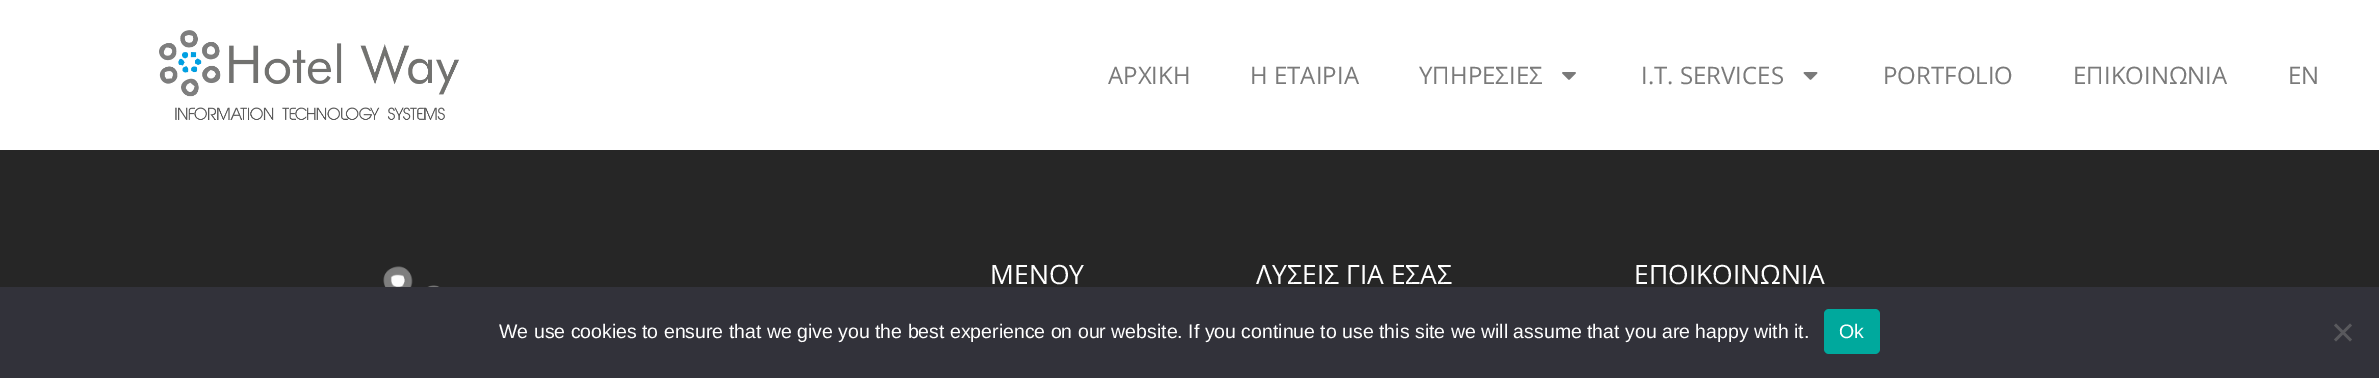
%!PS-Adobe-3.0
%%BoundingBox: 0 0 2379 378
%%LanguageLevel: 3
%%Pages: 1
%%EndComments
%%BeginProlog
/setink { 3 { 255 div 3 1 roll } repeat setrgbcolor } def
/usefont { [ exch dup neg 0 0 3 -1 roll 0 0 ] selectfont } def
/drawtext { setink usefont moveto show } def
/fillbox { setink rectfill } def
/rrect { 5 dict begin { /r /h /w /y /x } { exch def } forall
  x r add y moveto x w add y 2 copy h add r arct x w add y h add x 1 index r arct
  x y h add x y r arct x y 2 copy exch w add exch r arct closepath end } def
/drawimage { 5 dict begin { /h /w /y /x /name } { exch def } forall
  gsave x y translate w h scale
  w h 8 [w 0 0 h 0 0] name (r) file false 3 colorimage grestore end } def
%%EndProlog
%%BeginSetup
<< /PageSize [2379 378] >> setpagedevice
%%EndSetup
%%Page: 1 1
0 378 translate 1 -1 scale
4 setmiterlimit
0 0 2379 378 38 38 38 fillbox
0 0 2379 150 255 255 255 fillbox
(assets/img1.rgb) 159 30 300 90 drawimage
(ΑΡΧΙΚΗ) 1108 84 /OpenSans-Regular 24 122 122 122 drawtext
(Η ΕΤΑΙΡΙΑ) 1250 84 /OpenSans-Regular 24 122 122 122 drawtext
(ΥΠΗΡΕΣΙΕΣ) 1419 84 /OpenSans-Regular 24 122 122 122 drawtext
(assets/img2.rgb) 1562 72 14 8 drawimage
(I.T. SERVICES) 1641 84 /OpenSans-Regular 24 122 122 122 drawtext
(assets/img3.rgb) 1803 72 15 8 drawimage
(PORTFOLIO) 1883 84 /OpenSans-Regular 24 122 122 122 drawtext
(ΕΠΙΚΟΙΝΩΝΙΑ) 2073 84 /OpenSans-Regular 24 122 122 122 drawtext
(EN) 2288 84 /OpenSans-Regular 24 122 122 122 drawtext
(assets/img4.rgb) 383 266 57 21 drawimage
(ΜΕΝΟΥ) 990 284 /OpenSans-Regular 26.5 255 255 255 drawtext
(ΛΥΣΕΙΣ ΓΙΑ ΕΣΑΣ) 1256 284 /OpenSans-Regular 26.5 255 255 255 drawtext
(ΕΠΟΙΚΟΙΝΩΝΙΑ) 1634 284 /OpenSans-Regular 26.5 255 255 255 drawtext
0 287 2379 91 50 50 58 fillbox
(We use cookies to ensure that we give you the best experience on our website. If you continue to use this site we will assume that you are happy with it.) 499 338 /LiberationSans-Regular 19.5 255 255 255 drawtext
0 169 157 setink
1824 309 56 45 5 rrect fill
(Ok) 1839 338 /LiberationSans-Regular 19.5 255 255 255 drawtext
89 89 93 setink
2350 323.5 moveto 2352 325.5 lineto 2336 341.5 lineto 2334 339.5 lineto closepath fill
2334 325.5 moveto 2336 323.5 lineto 2352 339.5 lineto 2350 341.5 lineto closepath fill
showpage
%%EOF
